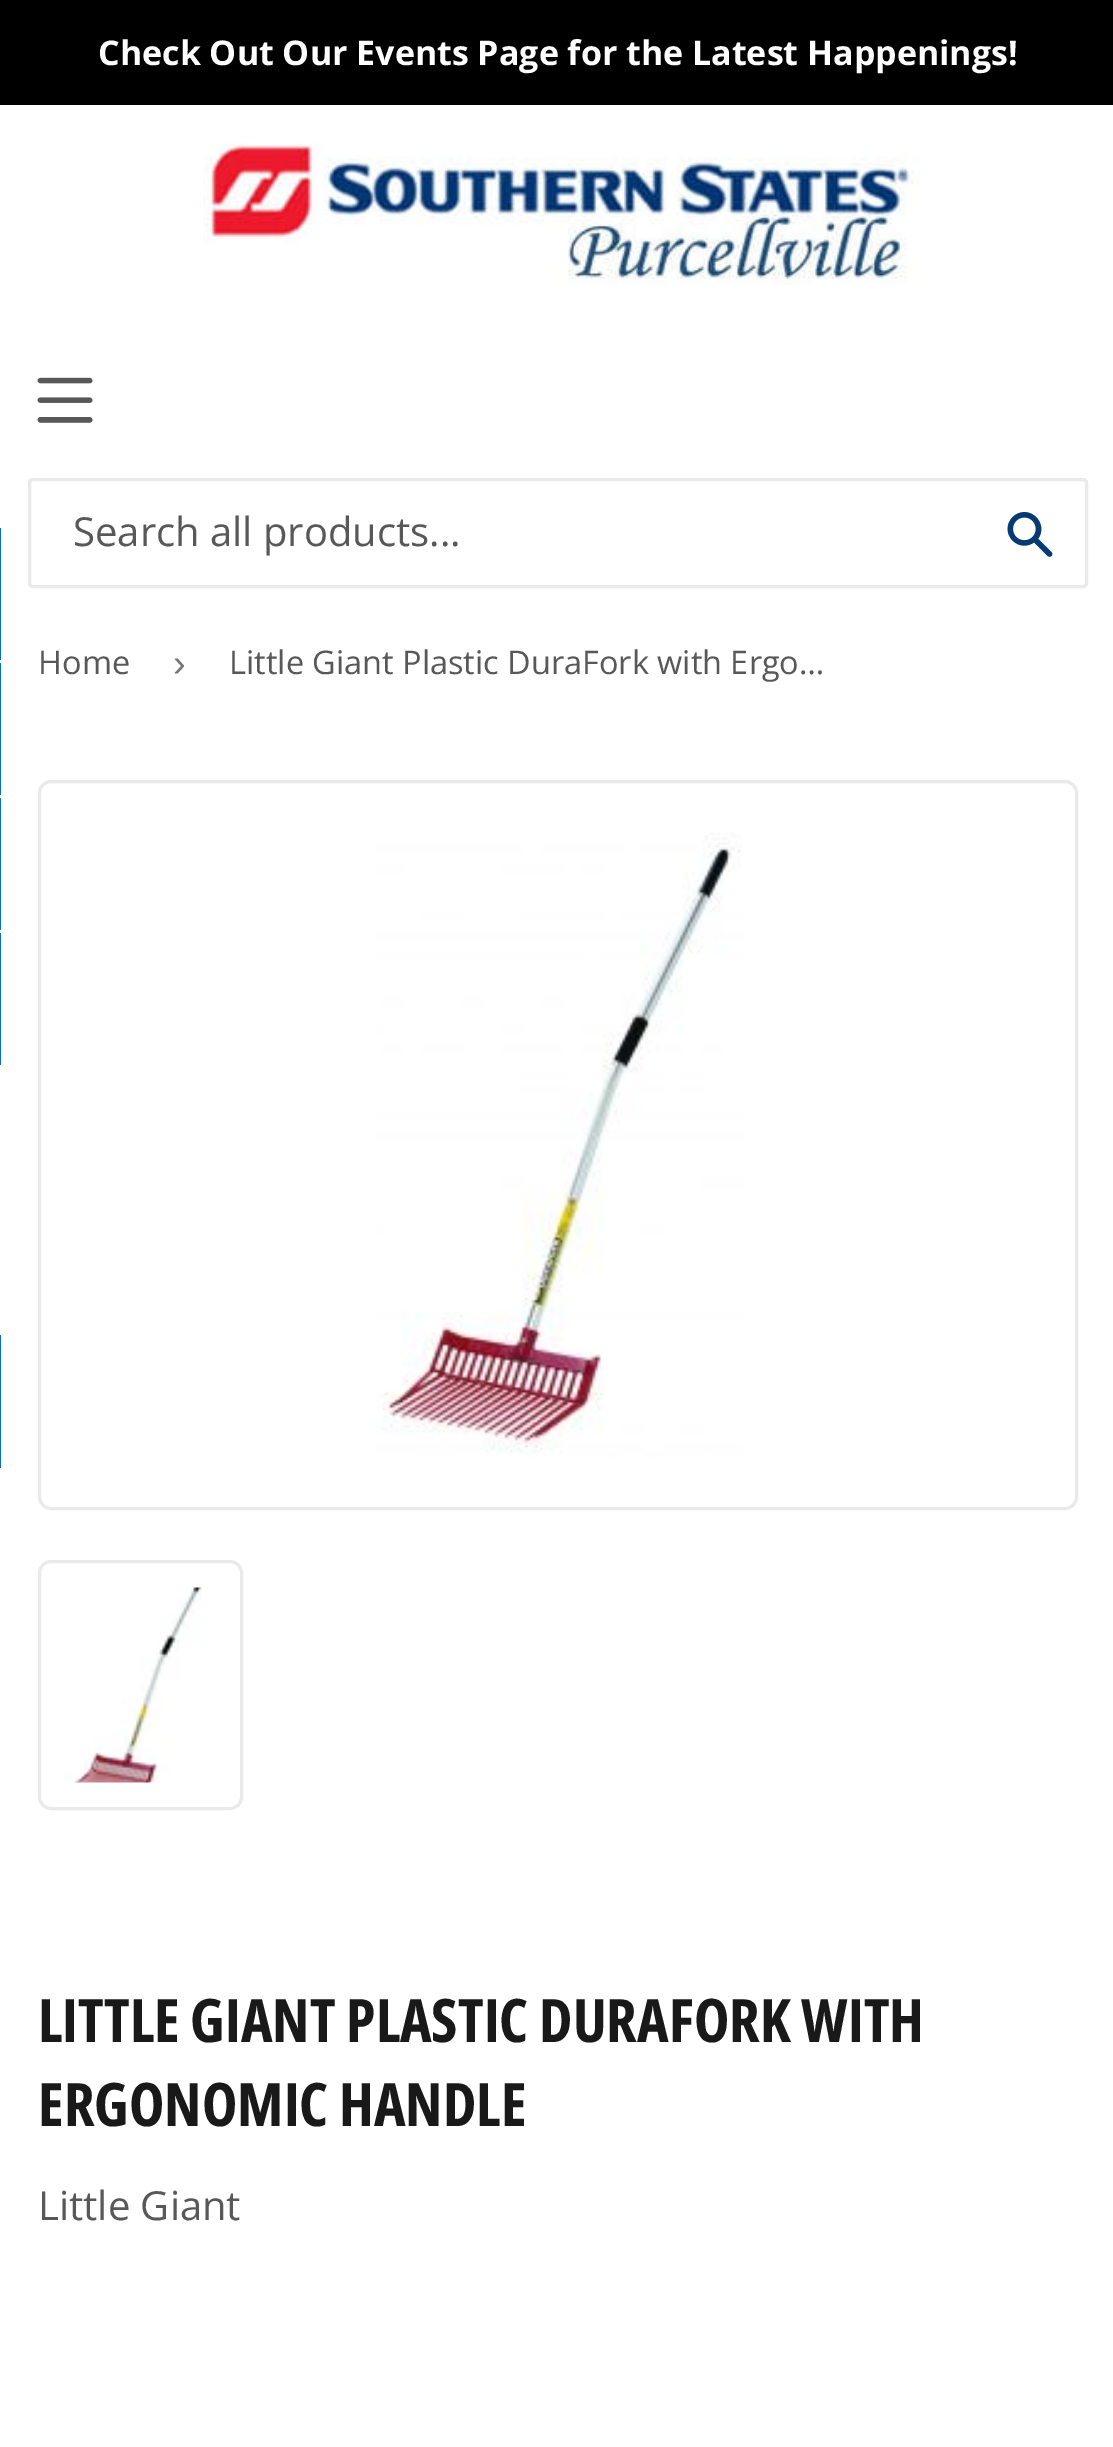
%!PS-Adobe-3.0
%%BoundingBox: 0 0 1113 2447
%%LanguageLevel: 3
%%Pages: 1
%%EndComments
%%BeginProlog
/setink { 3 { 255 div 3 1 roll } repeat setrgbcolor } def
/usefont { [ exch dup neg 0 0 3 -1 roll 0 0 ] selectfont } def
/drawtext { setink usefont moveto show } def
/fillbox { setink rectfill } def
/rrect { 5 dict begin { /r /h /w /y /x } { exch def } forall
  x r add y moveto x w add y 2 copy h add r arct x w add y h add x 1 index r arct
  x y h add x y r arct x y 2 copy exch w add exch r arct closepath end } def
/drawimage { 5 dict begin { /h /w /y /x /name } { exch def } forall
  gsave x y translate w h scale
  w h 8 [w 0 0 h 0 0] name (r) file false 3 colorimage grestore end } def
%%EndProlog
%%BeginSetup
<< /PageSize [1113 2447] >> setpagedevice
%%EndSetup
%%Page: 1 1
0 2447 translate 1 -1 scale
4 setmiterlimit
0 0 1113 2447 255 255 255 fillbox
0 0 1113 105 0 0 0 fillbox
(Check Out Our Events Page for the Latest Happenings!) 98 65 /OpenSans-Bold 34 255 255 255 drawtext
(assets/img1.rgb) 203 143 717 142 drawimage
(assets/img2.rgb) 37 377 56 46 drawimage
0 528 1 132 9 110 212 fillbox
0 663 1 132 9 110 212 fillbox
0 798 1 132 9 110 212 fillbox
0 933 1 132 9 110 212 fillbox
0 1335 1 133 9 110 212 fillbox
234 234 234 setink
3 setlinewidth
29.5 479.5 1057 107 3.5 rrect stroke
(Search all products...) 73 546 /OpenSans-Regular 40 88 88 88 drawtext
(assets/img3.rgb) 1007 512 46 45 drawimage
(Home) 38 674 /OpenSans-Regular 32.5 88 88 88 drawtext
(›) 173 676 /LiberationSans-Regular 38 118 118 118 drawtext
(Little Giant Plastic DuraFork with Ergo…) 229 674 /OpenSans-Regular 32.5 88 88 88 drawtext
234 234 234 setink
39.5 781.5 1037 727 11.5 rrect stroke
(assets/img4.rgb) 376 832 366 625 drawimage
39.5 1561.5 202 247 11.5 rrect stroke
(assets/img5.rgb) 65 1587 137 196 drawimage
(LITTLE GIANT PLASTIC DURAFORK WITH) 38 2042 /OpenSansCondensed-Bold 60 25 25 25 drawtext
(ERGONOMIC HANDLE) 38 2126 /OpenSansCondensed-Bold 60 25 25 25 drawtext
(Little Giant) 38 2220 /OpenSans-Regular 40 88 88 88 drawtext
showpage
%%EOF
